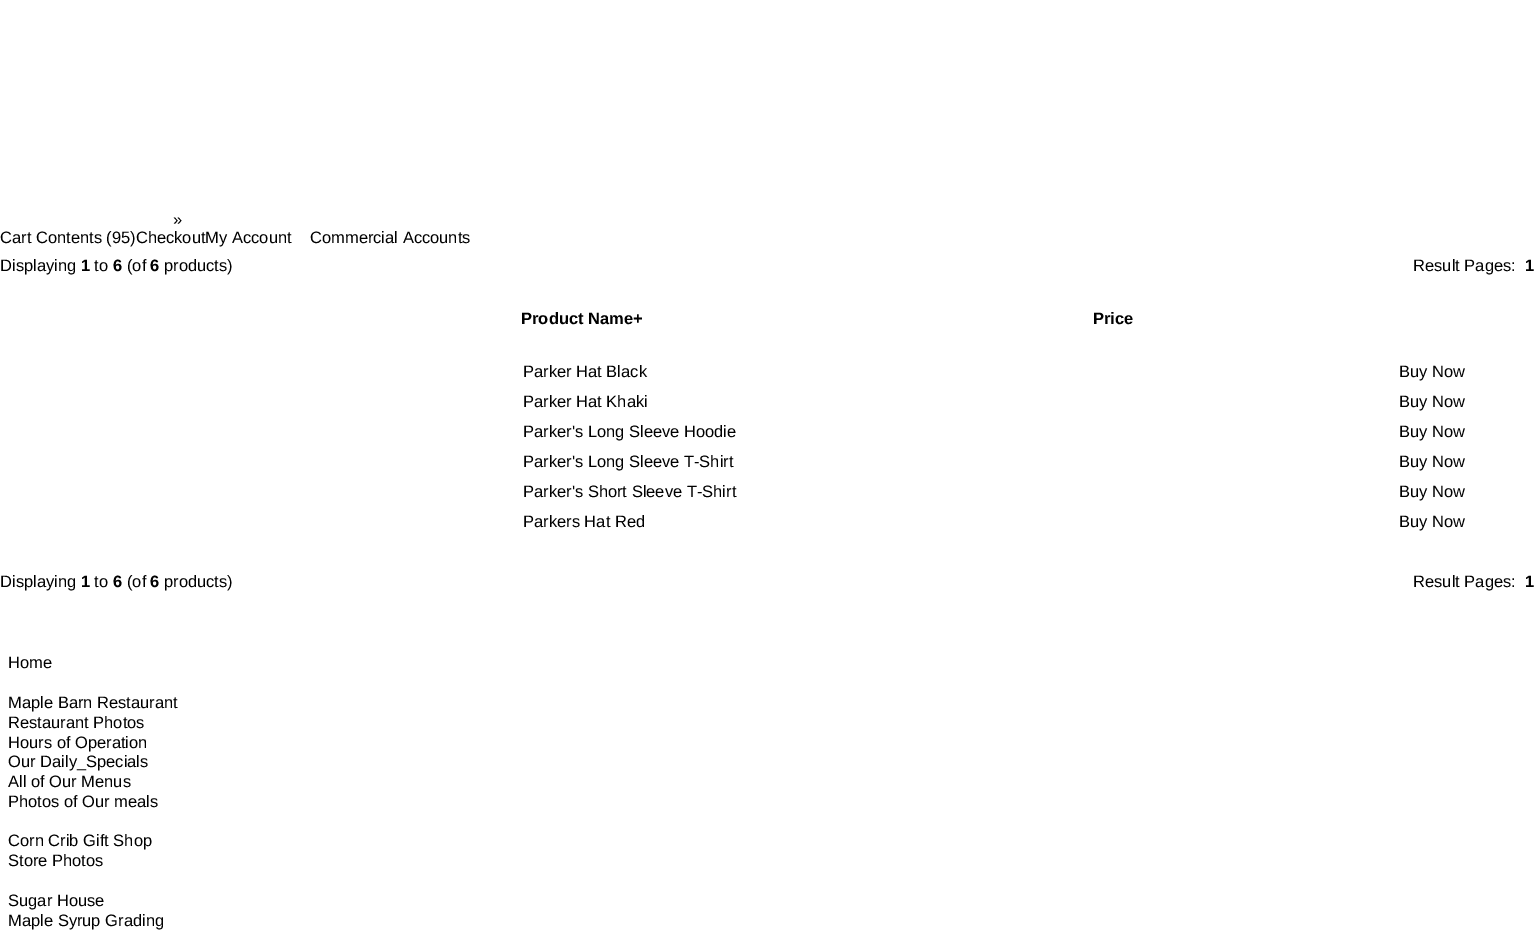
%!PS-Adobe-3.0
%%BoundingBox: 0 0 1538 947
%%LanguageLevel: 3
%%Pages: 1
%%EndComments
%%BeginProlog
/setink { 3 { 255 div 3 1 roll } repeat setrgbcolor } def
/usefont { [ exch dup neg 0 0 3 -1 roll 0 0 ] selectfont } def
/drawtext { setink usefont moveto show } def
/fillbox { setink rectfill } def
%%EndProlog
%%BeginSetup
<< /PageSize [1538 947] >> setpagedevice
%%EndSetup
%%Page: 1 1
0 947 translate 1 -1 scale
4 setmiterlimit
0 0 1538 947 255 255 255 fillbox
(») 173 225 /LiberationSans-Regular 16.5 0 0 0 drawtext
(Cart Contents \(95\)CheckoutMy Account) 0 243 /LiberationSans-Regular 16.5 0 0 0 drawtext
(Commercial Accounts) 310 243 /LiberationSans-Regular 16.5 0 0 0 drawtext
(Displaying) 0 271 /LiberationSans-Regular 16.5 0 0 0 drawtext
(1) 81 271 /LiberationSans-Bold 16.5 0 0 0 drawtext
(to) 94 271 /LiberationSans-Regular 16.5 0 0 0 drawtext
(6) 113 271 /LiberationSans-Bold 16.5 0 0 0 drawtext
(\(of) 127 271 /LiberationSans-Regular 16.5 0 0 0 drawtext
(6) 150 271 /LiberationSans-Bold 16.5 0 0 0 drawtext
(products\)) 164 271 /LiberationSans-Regular 16.5 0 0 0 drawtext
(Result Pages:) 1413 271 /LiberationSans-Regular 16.5 0 0 0 drawtext
(1) 1525 271 /LiberationSans-Bold 16.5 0 0 0 drawtext
(Product Name+) 521 324 /LiberationSans-Bold 16.5 0 0 0 drawtext
(Price) 1093 324 /LiberationSans-Bold 16.5 0 0 0 drawtext
(Parker Hat Black) 523 377 /LiberationSans-Regular 16.5 0 0 0 drawtext
(Buy Now) 1399 377 /LiberationSans-Regular 16.5 0 0 0 drawtext
(Parker Hat Khaki) 523 407 /LiberationSans-Regular 16.5 0 0 0 drawtext
(Buy Now) 1399 407 /LiberationSans-Regular 16.5 0 0 0 drawtext
(Parker's Long Sleeve Hoodie) 523 437 /LiberationSans-Regular 16.5 0 0 0 drawtext
(Buy Now) 1399 437 /LiberationSans-Regular 16.5 0 0 0 drawtext
(Parker's Long Sleeve T-Shirt) 523 467 /LiberationSans-Regular 16.5 0 0 0 drawtext
(Buy Now) 1399 467 /LiberationSans-Regular 16.5 0 0 0 drawtext
(Parker's Short Sleeve T-Shirt) 523 497 /LiberationSans-Regular 16.5 0 0 0 drawtext
(Buy Now) 1399 497 /LiberationSans-Regular 16.5 0 0 0 drawtext
(Parkers Hat Red) 523 527 /LiberationSans-Regular 16.5 0 0 0 drawtext
(Buy Now) 1399 527 /LiberationSans-Regular 16.5 0 0 0 drawtext
(Displaying) 0 587 /LiberationSans-Regular 16.5 0 0 0 drawtext
(1) 81 587 /LiberationSans-Bold 16.5 0 0 0 drawtext
(to) 94 587 /LiberationSans-Regular 16.5 0 0 0 drawtext
(6) 113 587 /LiberationSans-Bold 16.5 0 0 0 drawtext
(\(of) 127 587 /LiberationSans-Regular 16.5 0 0 0 drawtext
(6) 150 587 /LiberationSans-Bold 16.5 0 0 0 drawtext
(products\)) 164 587 /LiberationSans-Regular 16.5 0 0 0 drawtext
(Result Pages:) 1413 587 /LiberationSans-Regular 16.5 0 0 0 drawtext
(1) 1525 587 /LiberationSans-Bold 16.5 0 0 0 drawtext
(Home) 8 668 /LiberationSans-Regular 16.5 0 0 0 drawtext
(Maple Barn Restaurant) 8 708 /LiberationSans-Regular 16.5 0 0 0 drawtext
(Restaurant Photos) 8 728 /LiberationSans-Regular 16.5 0 0 0 drawtext
(Hours of Operation) 8 748 /LiberationSans-Regular 16.5 0 0 0 drawtext
(Our Daily_Specials) 8 767 /LiberationSans-Regular 16.5 0 0 0 drawtext
(All of Our Menus) 8 787 /LiberationSans-Regular 16.5 0 0 0 drawtext
(Photos of Our meals) 8 807 /LiberationSans-Regular 16.5 0 0 0 drawtext
(Corn Crib Gift Shop) 8 846 /LiberationSans-Regular 16.5 0 0 0 drawtext
(Store Photos) 8 866 /LiberationSans-Regular 16.5 0 0 0 drawtext
(Sugar House) 8 906 /LiberationSans-Regular 16.5 0 0 0 drawtext
(Maple Syrup Grading) 8 926 /LiberationSans-Regular 16.5 0 0 0 drawtext
showpage
%%EOF
